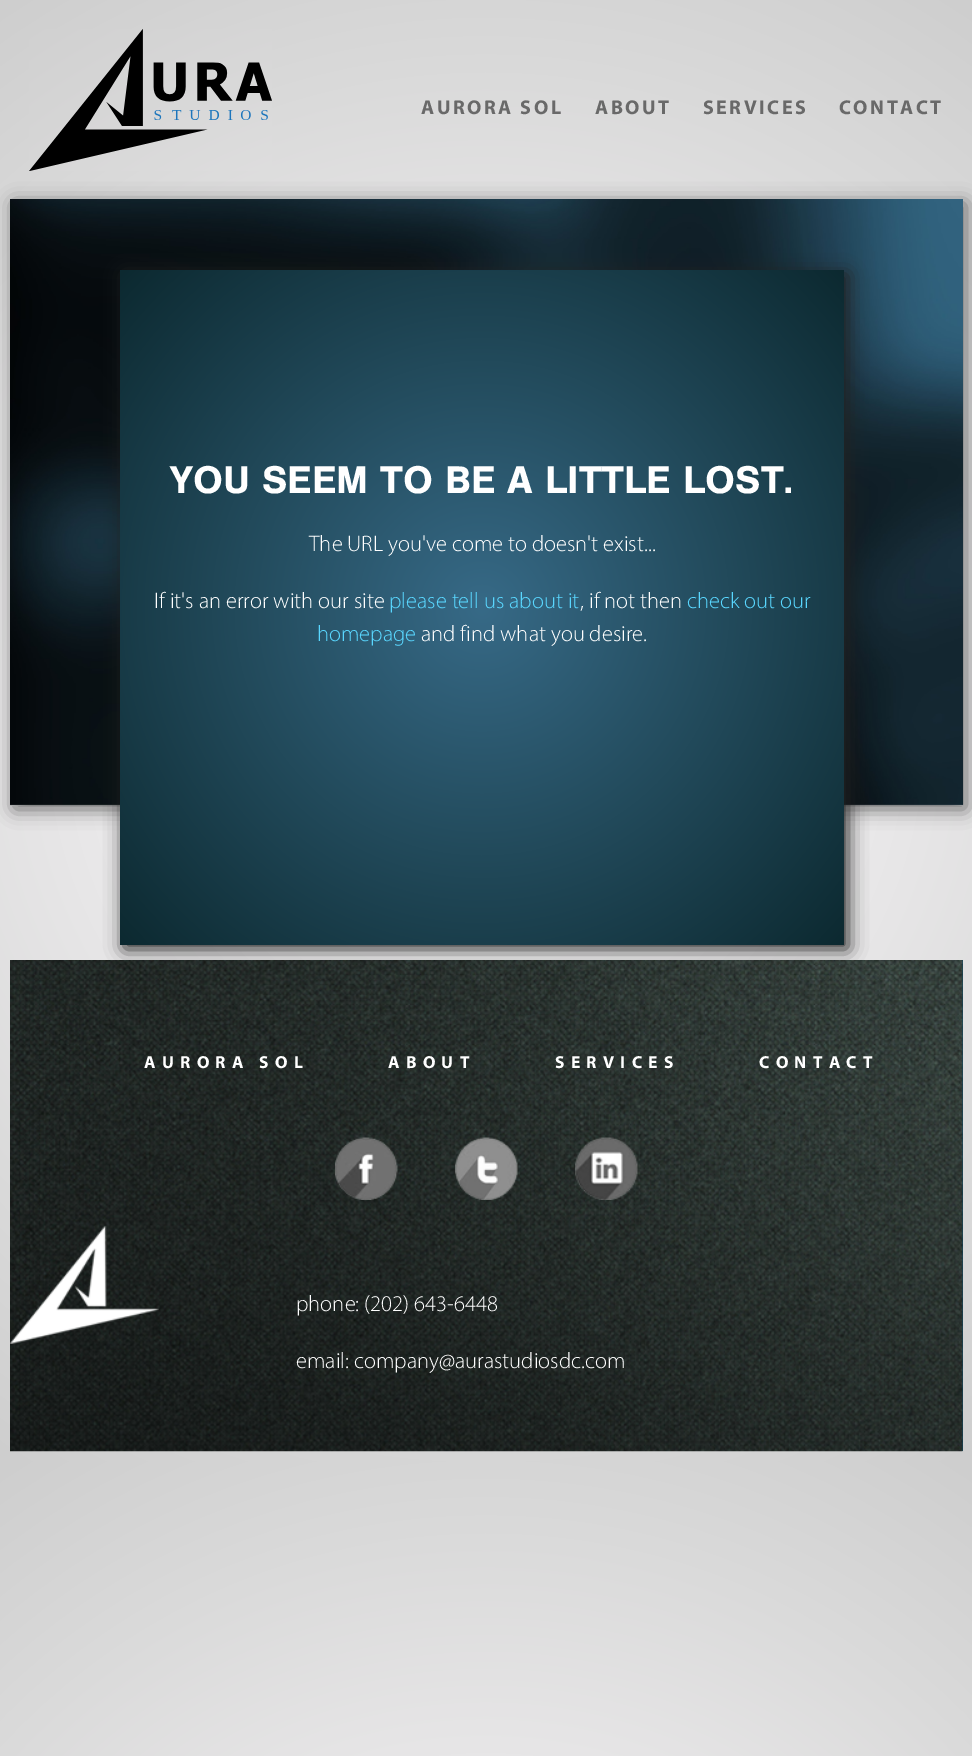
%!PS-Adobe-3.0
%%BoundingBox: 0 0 972 1756
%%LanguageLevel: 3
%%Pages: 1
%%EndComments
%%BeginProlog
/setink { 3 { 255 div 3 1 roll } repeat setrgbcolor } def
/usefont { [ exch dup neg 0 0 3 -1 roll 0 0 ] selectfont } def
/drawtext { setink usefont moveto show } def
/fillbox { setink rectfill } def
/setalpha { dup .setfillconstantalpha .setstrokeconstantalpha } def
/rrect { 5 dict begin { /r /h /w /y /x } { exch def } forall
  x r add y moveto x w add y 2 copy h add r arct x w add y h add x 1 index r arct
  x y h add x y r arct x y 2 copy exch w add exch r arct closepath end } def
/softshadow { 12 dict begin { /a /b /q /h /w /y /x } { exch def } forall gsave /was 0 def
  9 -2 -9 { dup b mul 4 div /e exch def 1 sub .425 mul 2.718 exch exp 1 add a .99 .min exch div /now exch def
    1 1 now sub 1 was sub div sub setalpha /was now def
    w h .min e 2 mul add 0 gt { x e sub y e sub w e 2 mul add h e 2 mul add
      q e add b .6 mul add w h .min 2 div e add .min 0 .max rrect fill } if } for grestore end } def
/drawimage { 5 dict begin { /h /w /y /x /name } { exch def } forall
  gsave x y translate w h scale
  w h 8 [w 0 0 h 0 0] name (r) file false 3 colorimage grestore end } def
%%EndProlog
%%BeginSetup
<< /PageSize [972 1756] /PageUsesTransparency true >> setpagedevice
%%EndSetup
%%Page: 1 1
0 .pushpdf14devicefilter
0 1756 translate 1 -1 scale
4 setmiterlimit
0 0 972 1756 255 255 255 fillbox
gsave 0 0 moveto 972 0 lineto 972 1461 lineto 0 1461 lineto closepath clip newpath 486 731 translate 878 878 scale
<< /ShadingType 3 /ColorSpace /DeviceRGB /Coords [0 0 0 0 0 1] /Extend [true true] /Function << /FunctionType 2 /Domain [0 1] /C0 [1 0.996 1] /C1 [0.808 0.808 0.808] /N 1 >> >> shfill grestore
gsave 0 1461 moveto 972 1461 lineto 972 1756 lineto 0 1756 lineto closepath clip newpath 486 2192 translate 878 878 scale
<< /ShadingType 3 /ColorSpace /DeviceRGB /Coords [0 0 0 0 0 1] /Extend [true true] /Function << /FunctionType 2 /Domain [0 1] /C0 [1 0.996 1] /C1 [0.808 0.808 0.808] /N 1 >> >> shfill grestore
(assets/img1.rgb) 29 29 243 142 drawimage
/Myriad-Bold 20 usefont
105 105 105 setink
421 114 moveto 2.5 0 (AURORA SOL) ashow
595 114 moveto 2.5 0 (ABOUT) ashow
703 114 moveto 2.5 0 (SERVICES) ashow
839 114 moveto 2.5 0 (CONTACT) ashow
104 104 104 setink
14 203 952 606 0 9.5 1 softshadow
(assets/img2.rgb) 10 199 953 607 drawimage
34 34 34 setink
124 274 724 675 0 9.5 1 softshadow
gsave 120 270 moveto 844 270 lineto 844 945 lineto 120 945 lineto closepath clip newpath 482 608 translate 495 495 scale
<< /ShadingType 3 /ColorSpace /DeviceRGB /Coords [0 0 0 0 0 1] /Extend [true true] /Function << /FunctionType 2 /Domain [0 1] /C0 [0.216 0.416 0.529] /C1 [0.047 0.161 0.188] /N 1 >> >> shfill grestore
(YOU SEEM TO BE A LITTLE LOST.) 170 493 /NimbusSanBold-Bold 40 255 255 255 drawtext
(The URL you've come to doesn't exist...) 309 551 /Myriad-Light 22.5 255 255 255 drawtext
(If it's an error with our site) 154 608 /Myriad-Light 22.5 255 255 255 drawtext
(please tell us about it) 389 608 /Myriad-Light 22.5 89 215 255 drawtext
(, if not then) 580 608 /Myriad-Light 22.5 255 255 255 drawtext
(check out our) 687 608 /Myriad-Light 22.5 89 215 255 drawtext
(homepage) 317 641 /Myriad-Light 22.5 89 215 255 drawtext
(and find what you desire.) 421 641 /Myriad-Light 22.5 255 255 255 drawtext
962 960 1 491 12 73 99 fillbox
(assets/img3.rgb) 10 960 953 492 drawimage
/Myriad-Bold 17.5 usefont
255 255 255 setink
144 1068 moveto 6.25 0 (AURORA SOL) ashow
388 1068 moveto 6.25 0 (ABOUT) ashow
555 1068 moveto 6.25 0 (SERVICES) ashow
759 1068 moveto 6.25 0 (CONTACT) ashow
(assets/img4.rgb) 335 1137 63 63 drawimage
(assets/img5.rgb) 455 1137 63 63 drawimage
(assets/img6.rgb) 575 1137 63 63 drawimage
(assets/img7.rgb) 10 1226 149 118 drawimage
(phone: \(202\) 643-6448) 296 1311 /Myriad-Light 22.5 255 255 255 drawtext
(email: company@aurastudiosdc.com) 296 1368 /Myriad-Light 22.5 255 255 255 drawtext
.poppdf14devicefilter showpage
%%EOF
